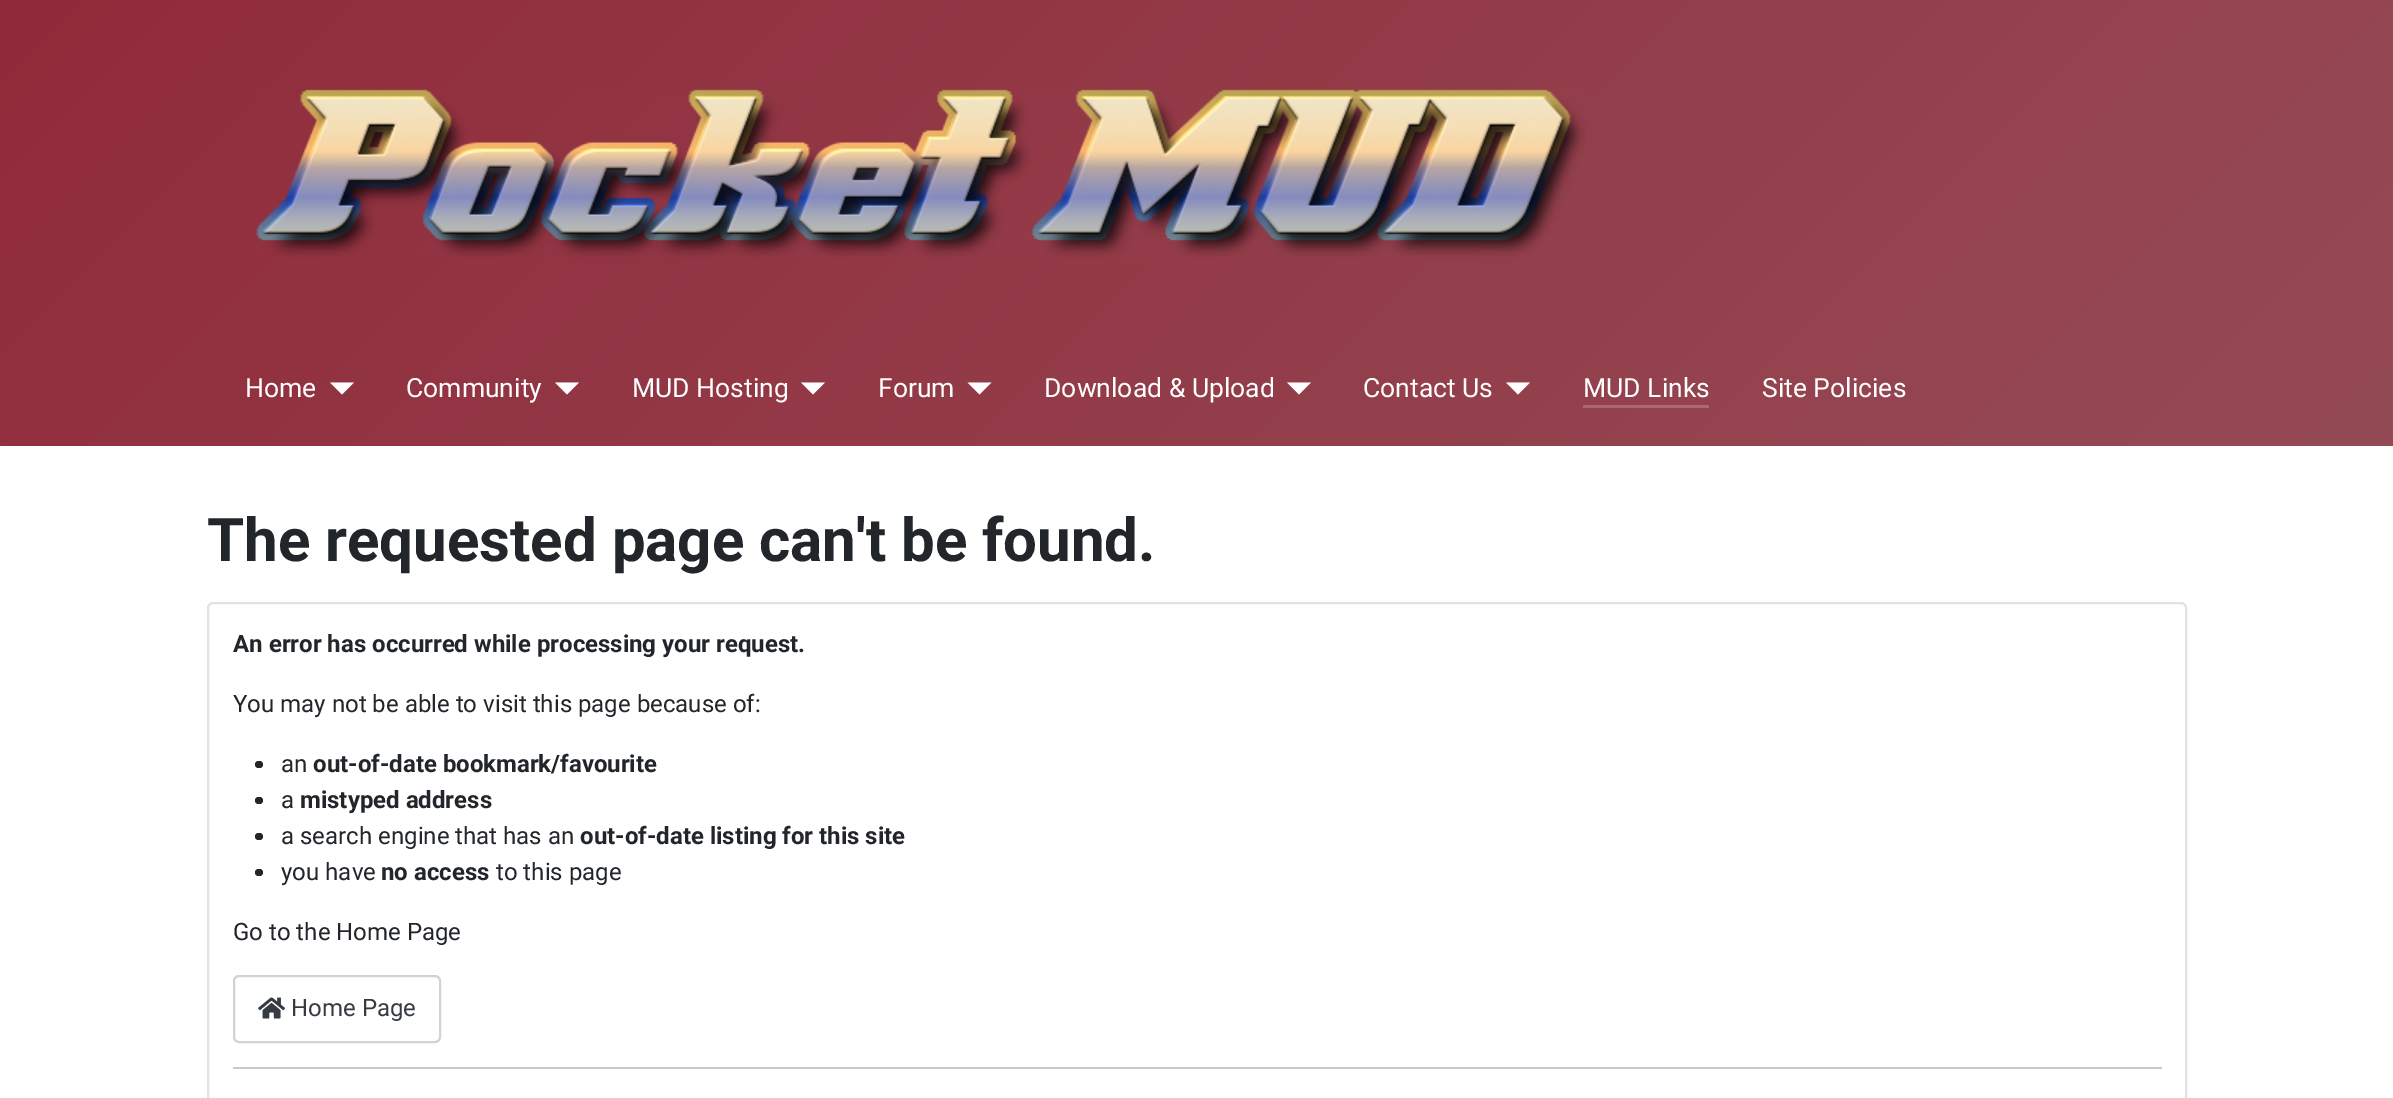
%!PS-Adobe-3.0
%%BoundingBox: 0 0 2393 1098
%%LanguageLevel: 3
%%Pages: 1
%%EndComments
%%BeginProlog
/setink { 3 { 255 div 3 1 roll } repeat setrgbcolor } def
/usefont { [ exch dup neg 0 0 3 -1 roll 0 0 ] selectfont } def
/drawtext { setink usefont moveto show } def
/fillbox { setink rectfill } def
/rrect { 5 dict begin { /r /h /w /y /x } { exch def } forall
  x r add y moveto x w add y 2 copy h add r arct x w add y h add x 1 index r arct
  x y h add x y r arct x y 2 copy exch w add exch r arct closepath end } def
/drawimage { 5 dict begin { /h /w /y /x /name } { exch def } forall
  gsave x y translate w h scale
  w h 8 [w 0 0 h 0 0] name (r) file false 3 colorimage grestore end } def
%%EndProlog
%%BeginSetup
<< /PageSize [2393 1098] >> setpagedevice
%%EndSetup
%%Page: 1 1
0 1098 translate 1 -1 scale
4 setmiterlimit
0 0 2393 1098 255 255 255 fillbox
gsave 0 0 moveto 2393 0 lineto 2393 446 lineto 0 446 lineto closepath clip newpath
<< /ShadingType 2 /ColorSpace /DeviceRGB /Coords [487 -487 1907 933] /Extend [true true] /Function << /FunctionType 2 /Domain [0 1] /C0 [0.569 0.169 0.231] /C1 [0.584 0.294 0.337] /N 1 >> >> shfill grestore
(assets/img1.rgb) 256 89 1330 168 drawimage
(Home) 245 397 /Roboto-Regular 26.5 255 255 255 drawtext
330 382.5 moveto 354 382.5 lineto 342 394.5 lineto closepath fill
(Community) 406 397 /Roboto-Regular 26.5 255 255 255 drawtext
555 382.5 moveto 579 382.5 lineto 567 394.5 lineto closepath fill
(MUD Hosting) 632 397 /Roboto-Regular 26.5 255 255 255 drawtext
801 382.5 moveto 825 382.5 lineto 813 394.5 lineto closepath fill
(Forum) 878 397 /Roboto-Regular 26.5 255 255 255 drawtext
967.5 382.5 moveto 991.5 382.5 lineto 979.5 394.5 lineto closepath fill
(Download & Upload) 1044 397 /Roboto-Regular 26.5 255 255 255 drawtext
1287 382.5 moveto 1311 382.5 lineto 1299 394.5 lineto closepath fill
(Contact Us) 1363 397 /Roboto-Regular 26.5 255 255 255 drawtext
1506 382.5 moveto 1530 382.5 lineto 1518 394.5 lineto closepath fill
(MUD Links) 1583 397 /Roboto-Regular 26.5 255 255 255 drawtext
1583 405 126 3 169 104 114 fillbox
(Site Policies) 1762 397 /Roboto-Regular 26.5 255 255 255 drawtext
(The requested page can't be found.) 207 561 /Roboto-Bold 60 34 38 42 drawtext
223 227 231 setink
2 setlinewidth
208 603 1978 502 5 rrect stroke
(An error has occurred while processing your request.) 233 652 /Roboto-Bold 24 34 38 42 drawtext
(You may not be able to visit this page because of:) 233 712 /Roboto-Regular 24 34 38 42 drawtext
255 761 8 7 3.5 rrect fill
(an) 281 772 /Roboto-Regular 24 34 38 42 drawtext
(out-of-date bookmark/favourite) 313 772 /Roboto-Bold 24 34 38 42 drawtext
255 797 8 7 3.5 rrect fill
(a) 281 808 /Roboto-Regular 24 34 38 42 drawtext
(mistyped address) 300 808 /Roboto-Bold 24 34 38 42 drawtext
255 833 8 7 3.5 rrect fill
(a search engine that has an) 281 844 /Roboto-Regular 24 34 38 42 drawtext
(out-of-date listing for this site) 580 844 /Roboto-Bold 24 34 38 42 drawtext
255 869 8 7 3.5 rrect fill
(you have) 281 880 /Roboto-Regular 24 34 38 42 drawtext
(no access) 381 880 /Roboto-Bold 24 34 38 42 drawtext
(to this page) 496 880 /Roboto-Regular 24 34 38 42 drawtext
(Go to the Home Page) 233 940 /Roboto-Regular 24 34 38 42 drawtext
206 212 218 setink
234 976 206 66 5 rrect stroke
(assets/img2.rgb) 258 997 27 22 drawimage
(Home Page) 291 1016 /Roboto-Regular 24 53 59 65 drawtext
233 1067 1929 2 200 201 202 fillbox
showpage
%%EOF
